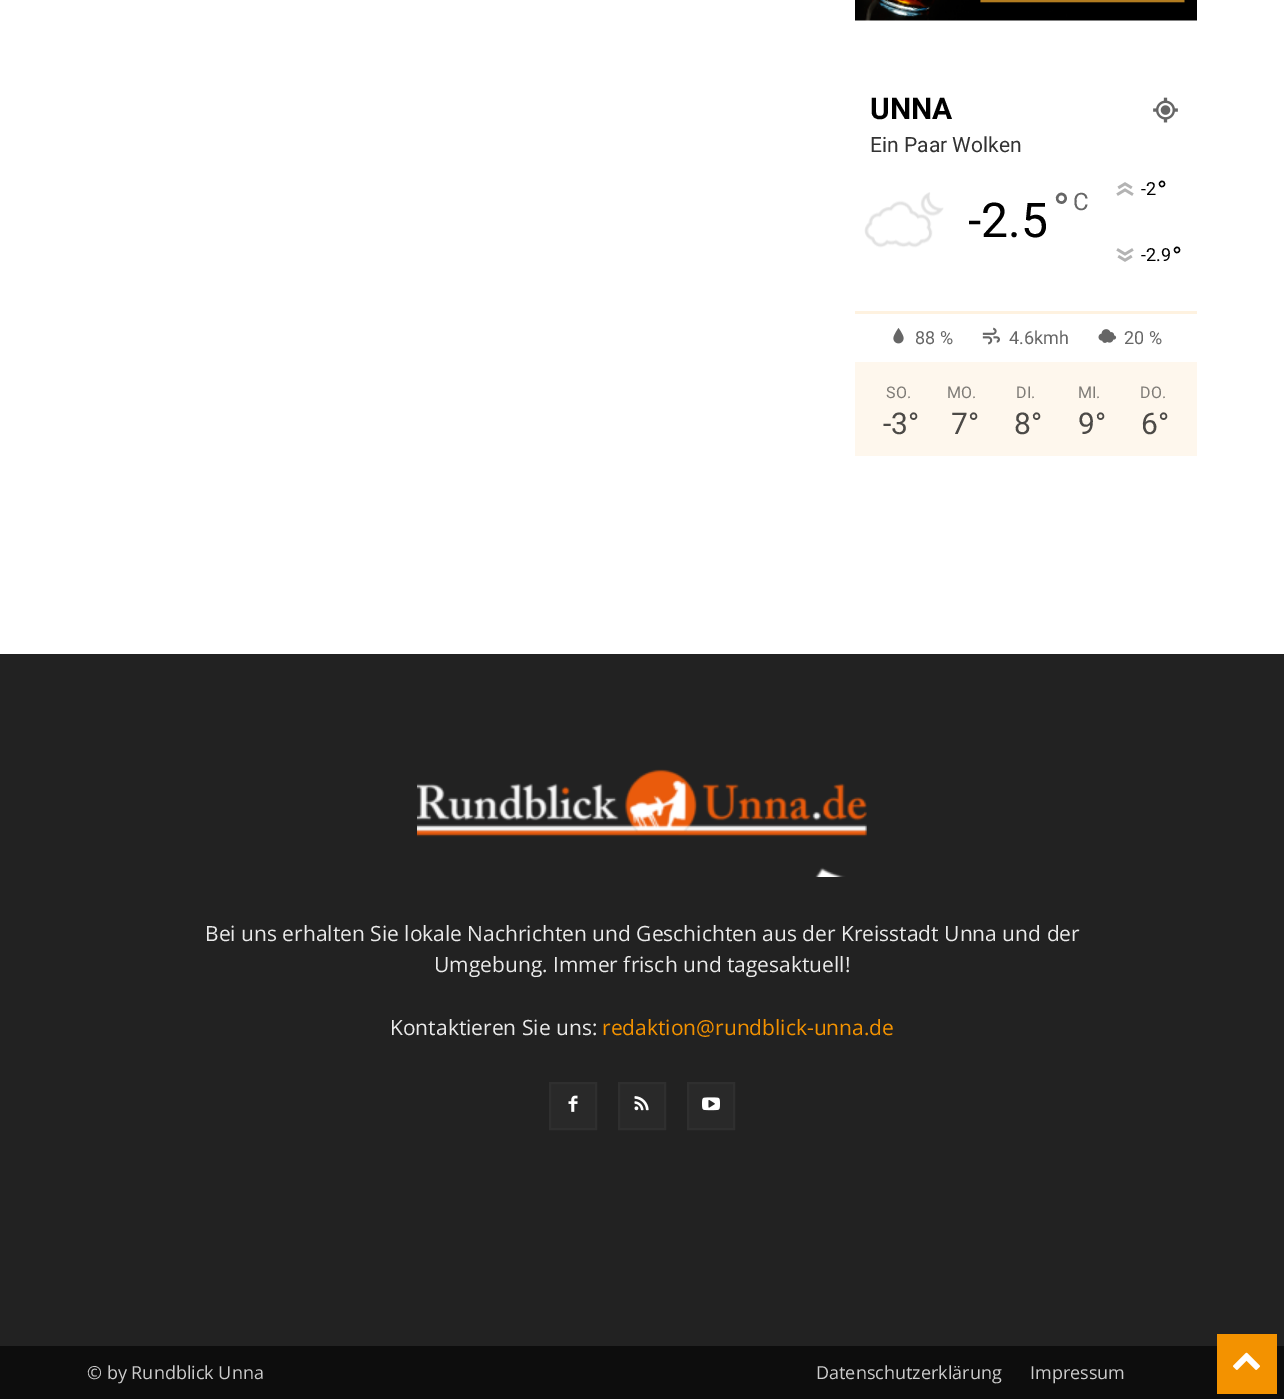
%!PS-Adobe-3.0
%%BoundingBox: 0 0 1284 1399
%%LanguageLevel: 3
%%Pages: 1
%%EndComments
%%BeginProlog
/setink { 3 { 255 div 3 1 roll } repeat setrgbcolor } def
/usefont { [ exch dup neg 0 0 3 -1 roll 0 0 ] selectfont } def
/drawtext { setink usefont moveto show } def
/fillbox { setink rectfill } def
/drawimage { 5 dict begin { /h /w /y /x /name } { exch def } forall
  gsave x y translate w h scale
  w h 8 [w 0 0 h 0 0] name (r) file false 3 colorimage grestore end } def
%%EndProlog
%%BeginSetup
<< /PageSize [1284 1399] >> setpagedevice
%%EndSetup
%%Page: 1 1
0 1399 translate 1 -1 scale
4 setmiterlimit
0 0 1284 1399 255 255 255 fillbox
(assets/img1.rgb) 855 0 342 21 drawimage
(UNNA) 870 119 /Roboto-Bold 30 0 0 0 drawtext
(assets/img2.rgb) 1153 97 25 26 drawimage
(Ein Paar Wolken) 870 152 /Roboto-Regular 21 51 51 51 drawtext
(assets/img3.rgb) 864 192 80 56 drawimage
(-2.5) 968 237 /Roboto-Regular 48 0 0 0 drawtext
(°) 1053 225 /Roboto-Regular 45 102 102 102 drawtext
(C) 1073 210 /Roboto-Regular 24 102 102 102 drawtext
(assets/img4.rgb) 1116 182 18 14 drawimage
(-2) 1141 195 /Roboto-Regular 18 0 0 0 drawtext
(°) 1157 200 /Roboto-Regular 27 0 0 0 drawtext
(assets/img5.rgb) 1116 248 18 14 drawimage
(-2.9) 1141 261 /Roboto-Regular 18 0 0 0 drawtext
(°) 1172 266 /Roboto-Regular 27 0 0 0 drawtext
855 311 342 3 254 242 224 fillbox
(assets/img6.rgb) 893 328 11 16 drawimage
(88 %) 915 344 /Roboto-Regular 18 102 102 102 drawtext
(assets/img7.rgb) 982 327 18 18 drawimage
(4.6kmh) 1009 344 /Roboto-Regular 18 102 102 102 drawtext
(assets/img8.rgb) 1098 329 19 14 drawimage
(20 %) 1124 344 /Roboto-Regular 18 102 102 102 drawtext
855 362 342 94 254 247 237 fillbox
(SO.) 886 398 /Roboto-Regular 16 127 124 119 drawtext
(-3°) 883 434 /Roboto-Regular 30 76 74 71 drawtext
(MO.) 947 398 /Roboto-Regular 16 127 124 119 drawtext
(7°) 951 434 /Roboto-Regular 30 76 74 71 drawtext
(DI.) 1016 398 /Roboto-Regular 16 127 124 119 drawtext
(8°) 1014 434 /Roboto-Regular 30 76 74 71 drawtext
(MI.) 1078 398 /Roboto-Regular 16 127 124 119 drawtext
(9°) 1078 434 /Roboto-Regular 30 76 74 71 drawtext
(DO.) 1140 398 /Roboto-Regular 16 127 124 119 drawtext
(6°) 1141 434 /Roboto-Regular 30 76 74 71 drawtext
0 654 1284 692 34 34 34 fillbox
(assets/img9.rgb) 417 769 450 108 drawimage
(Bei uns erhalten Sie lokale Nachrichten und Geschichten aus der Kreisstadt Unna und der) 205 941 /OpenSans-Regular 21 234 234 234 drawtext
(Umgebung. Immer frisch und tagesaktuell!) 434 972 /OpenSans-Regular 21 234 234 234 drawtext
(Kontaktieren Sie uns:) 390 1035 /OpenSans-Regular 21 234 234 234 drawtext
(redaktion@rundblick-unna.de) 602 1035 /OpenSans-Regular 21 243 146 0 drawtext
551 1084 44 44 41 41 41 fillbox
(assets/img10.rgb) 568 1095 10 17 drawimage
47 47 47 setink
2 setlinewidth
550 1083 46 46 rectstroke
620 1084 44 44 41 41 41 fillbox
(assets/img11.rgb) 634 1096 15 15 drawimage
47 47 47 setink
619 1083 46 46 rectstroke
689 1084 44 44 41 41 41 fillbox
(assets/img12.rgb) 702 1097 18 14 drawimage
47 47 47 setink
688 1083 46 46 rectstroke
0 1346 1284 53 13 13 13 fillbox
(© by Rundblick Unna) 87 1379 /OpenSans-Regular 18 204 204 204 drawtext
(Datenschutzerklärung) 816 1379 /OpenSans-Regular 18 204 204 204 drawtext
(Impressum) 1030 1379 /OpenSans-Regular 18 204 204 204 drawtext
1217 1334 60 60 243 146 0 fillbox
(assets/img13.rgb) 1233 1352 27 18 drawimage
showpage
%%EOF
